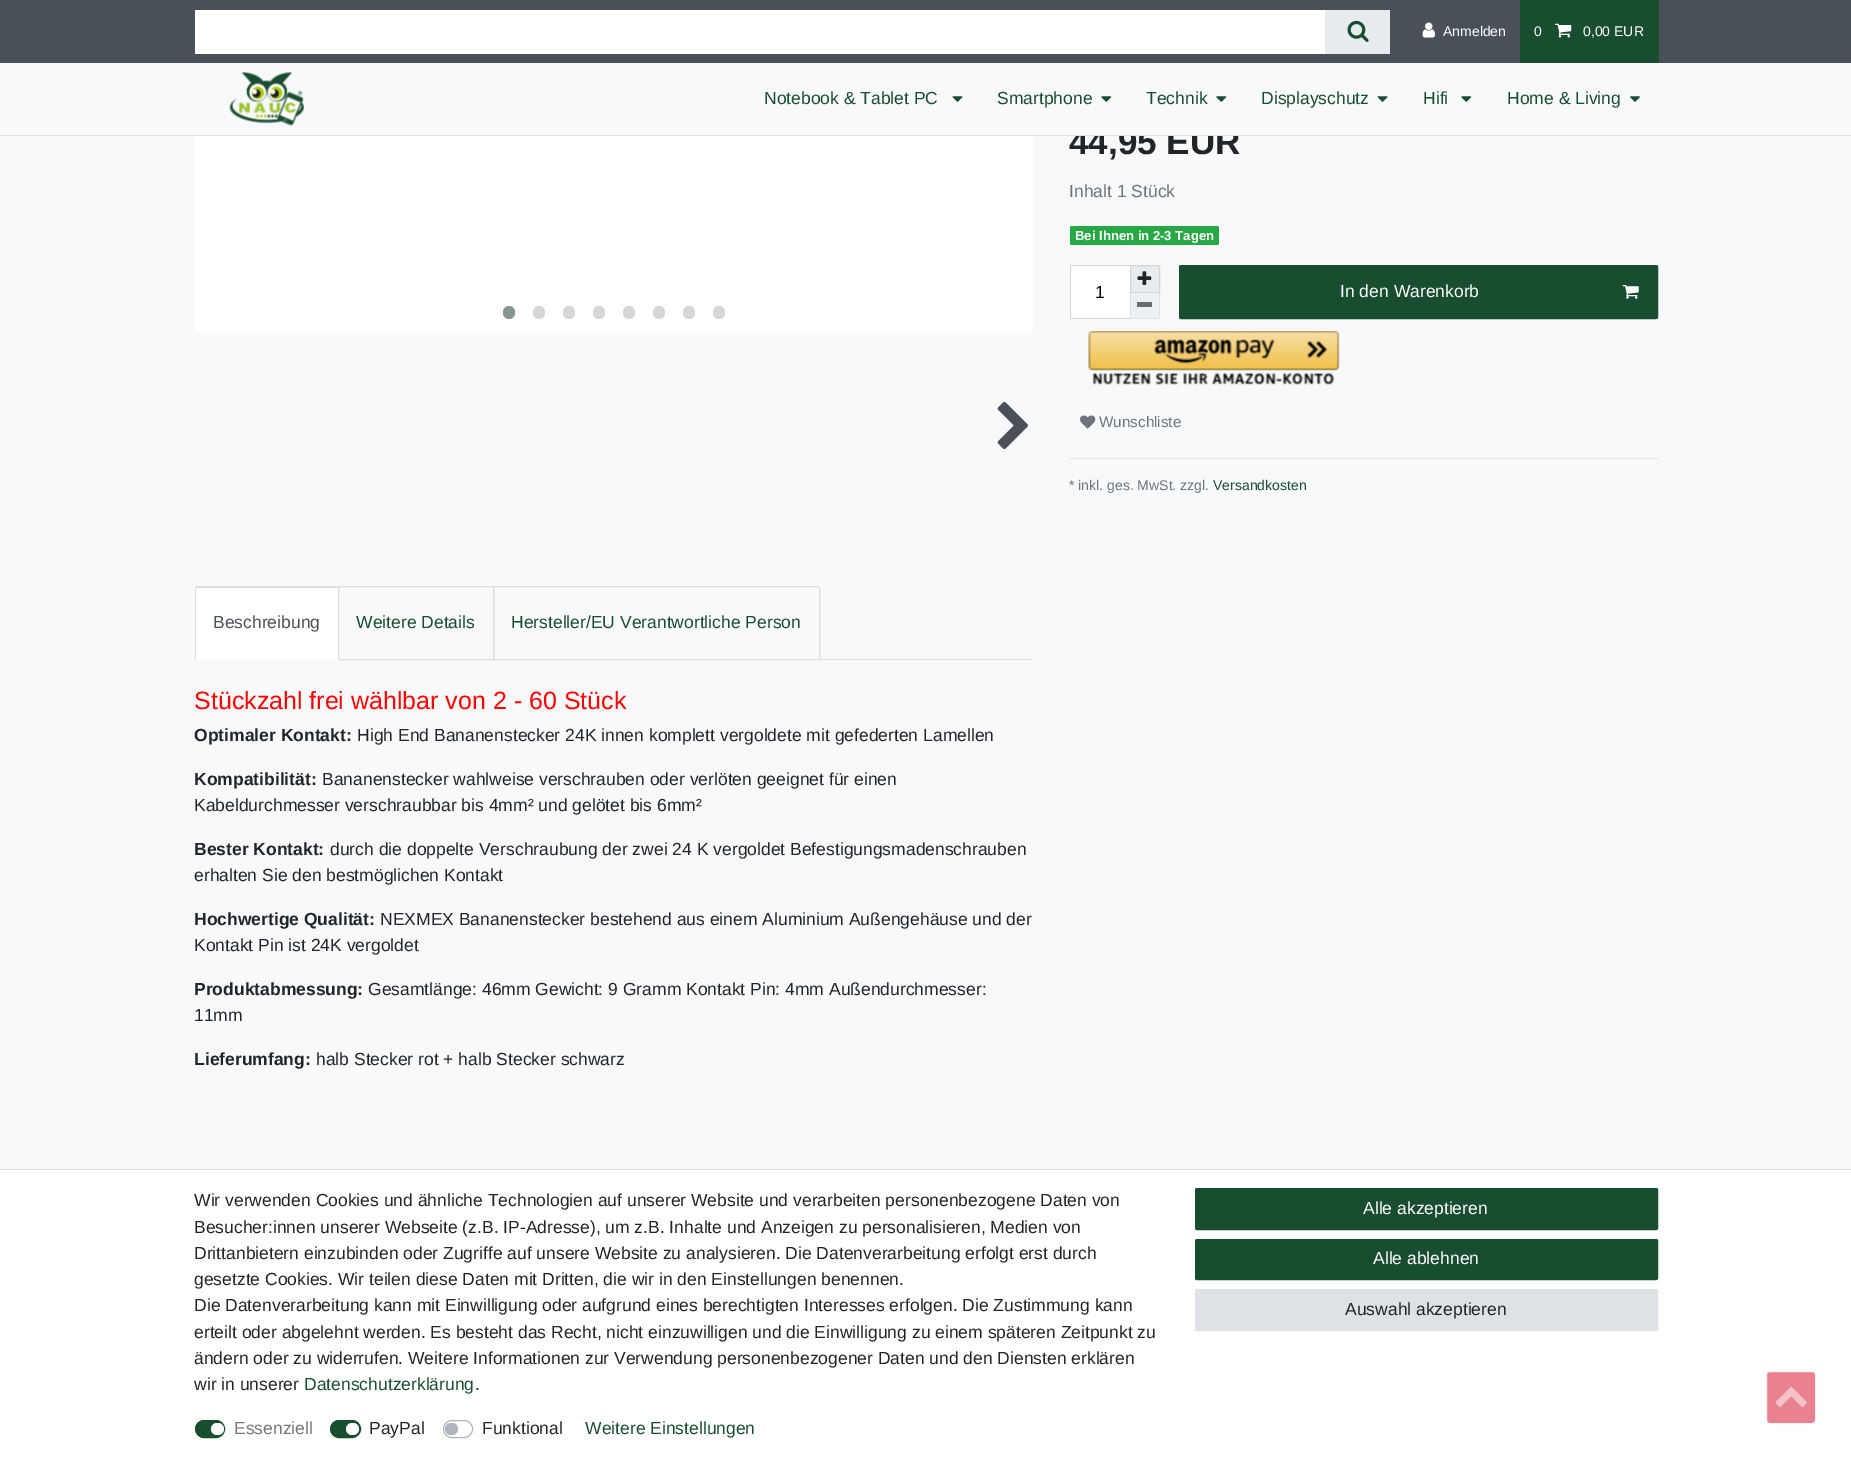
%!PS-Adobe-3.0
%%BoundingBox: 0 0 1851 1458
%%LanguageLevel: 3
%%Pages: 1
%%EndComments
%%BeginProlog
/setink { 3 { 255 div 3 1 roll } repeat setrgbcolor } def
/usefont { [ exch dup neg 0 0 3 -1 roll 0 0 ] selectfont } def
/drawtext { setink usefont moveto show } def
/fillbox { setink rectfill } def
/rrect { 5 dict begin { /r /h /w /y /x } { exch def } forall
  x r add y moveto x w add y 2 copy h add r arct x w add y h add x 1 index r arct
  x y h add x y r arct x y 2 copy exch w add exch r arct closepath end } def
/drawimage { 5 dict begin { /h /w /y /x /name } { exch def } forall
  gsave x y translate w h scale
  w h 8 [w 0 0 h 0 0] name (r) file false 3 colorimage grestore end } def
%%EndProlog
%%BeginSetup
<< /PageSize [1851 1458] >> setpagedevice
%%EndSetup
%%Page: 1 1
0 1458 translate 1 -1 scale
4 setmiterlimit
0 0 1851 1458 248 249 250 fillbox
0 0 1851 63 73 80 87 fillbox
195 10 1130 44 255 255 255 fillbox
1325 10 65 44 233 236 239 fillbox
(assets/img1.rgb) 1347 20 22 22 drawimage
(assets/img2.rgb) 1422 22 13 16 drawimage
(Anmelden) 1443 36 /LiberationSans-Regular 14 255 255 255 drawtext
1520 0 139 63 25 77 47 fillbox
(0) 1534 36 /LiberationSans-Regular 14 255 255 255 drawtext
(assets/img3.rgb) 1555 23 17 15 drawimage
(0,00 EUR) 1583 36 /LiberationSans-Regular 14 255 255 255 drawtext
(44,95 EUR) 1069 154 /LiberationSans-Bold 35 33 37 41 drawtext
1076 129 163 6 248 249 250 fillbox
0 135 1851 1 222 226 230 fillbox
(assets/img4.rgb) 229 72 75 54 drawimage
(Notebook & Tablet PC) 764 104 /LiberationSans-Regular 17.5 25 77 47 drawtext
(assets/img5.rgb) 952 96 11 6 drawimage
(Smartphone) 997 104 /LiberationSans-Regular 17.5 25 77 47 drawtext
(assets/img6.rgb) 1101 96 11 6 drawimage
(Technik) 1146 104 /LiberationSans-Regular 17.5 25 77 47 drawtext
(assets/img6.rgb) 1216 96 11 6 drawimage
(Displayschutz) 1261 104 /LiberationSans-Regular 17.5 25 77 47 drawtext
(assets/img5.rgb) 1377 96 11 6 drawimage
(Hifi) 1423 104 /LiberationSans-Regular 17.5 25 77 47 drawtext
(assets/img6.rgb) 1461 96 11 6 drawimage
(Home & Living) 1507 104 /LiberationSans-Regular 17.5 25 77 47 drawtext
(assets/img7.rgb) 1630 96 10 6 drawimage
195 136 838 197 255 255 255 fillbox
134 151 145 setink
503 306 12 13 6 rrect fill
214 214 214 setink
533 306 12 13 6 rrect fill
563 306 12 13 6 rrect fill
593 306 12 13 6 rrect fill
623 306 12 13 6 rrect fill
653 306 12 13 6 rrect fill
683 306 12 13 6 rrect fill
713 306 12 13 6 rrect fill
(assets/img8.rgb) 997 401 31 49 drawimage
(Inhalt 1 Stück) 1069 197 /LiberationSans-Regular 17.5 108 117 125 drawtext
40 167 69 setink
1070 226 149 19 2 rrect fill
(Bei Ihnen in 2-3 Tagen) 1075 240 /LiberationSans-Bold 13.1 255 255 255 drawtext
1071 266 59 52 255 255 255 fillbox
1070 265 60 1 206 212 218 fillbox
1070 318 60 1 206 212 218 fillbox
1070 265 1 54 206 212 218 fillbox
(1) 1095 298 /LiberationSans-Regular 17.5 0 0 0 drawtext
233 236 239 setink
1130.5 265.5 moveto 1158 265.5 lineto 1159 265.5 1159.5 266 1159.5 267 curveto 1159.5 292.5 lineto 1130.5 292.5 lineto closepath gsave fill grestore
206 212 218 setink
stroke
(assets/img9.rgb) 1137 271 15 14 drawimage
238 241 243 setink
1130 293 moveto 1160 293 lineto 1160 317 lineto 1160 318 1159 319 1158 319 curveto 1130 319 lineto closepath fill
1159 293 1 25 221 225 229 fillbox
1130 318 29 1 221 225 229 fillbox
1130 293 1 26 221 225 229 fillbox
1137 302 15 5 105 108 112 fillbox
25 77 47 setink
1179.5 265.5 478 53 1.5 rrect gsave fill grestore
stroke
(In den Warenkorb) 1340 297 /LiberationSans-Regular 17.5 255 255 255 drawtext
(assets/img10.rgb) 1622 285 17 14 drawimage
(assets/img11.rgb) 1088 331 252 54 drawimage
(assets/img12.rgb) 1080 415 16 14 drawimage
(Wunschliste) 1099 427 /LiberationSans-Regular 15.25 108 117 125 drawtext
1070 458 588 1 222 226 230 fillbox
(* inkl. ges. MwSt. zzgl.) 1069 490 /LiberationSans-Regular 14 108 117 125 drawtext
(Versandkosten) 1213 490 /LiberationSans-Regular 14 25 77 47 drawtext
820 659 213 1 221 221 221 fillbox
255 255 255 setink
197 586 moveto 337 586 lineto 338 586 339 587 339 588 curveto 339 660 lineto 195 660 lineto 195 588 lineto 195 587 196 586 197 586 curveto closepath fill
221 221 221 setink
196 587 moveto 196 586 lineto 338 586 lineto 338 587 lineto 337 588 lineto 197 588 lineto closepath fill
339 587 moveto 339 660 lineto 338 659 lineto 338 588 lineto 337 588 lineto 338 587 lineto closepath fill
195 660 moveto 196 659 lineto 196 588 lineto 197 588 lineto 196 587 lineto 195 588 lineto closepath fill
(Beschreibung) 213 628 /LiberationSans-Regular 17.5 73 80 87 drawtext
221 221 221 setink
340 586.5 moveto 492 586.5 lineto 493 586.5 493.5 587 493.5 588 curveto 493.5 659.5 lineto 338.5 659.5 lineto 338.5 588 lineto 338.5 587 339 586.5 340 586.5 curveto closepath stroke
(Weitere Details) 356 628 /LiberationSans-Regular 17.5 25 77 47 drawtext
221 221 221 setink
495 586.5 moveto 818 586.5 lineto 819 586.5 819.5 587 819.5 588 curveto 819.5 659.5 lineto 493.5 659.5 lineto 493.5 588 lineto 493.5 587 494 586.5 495 586.5 curveto closepath stroke
(Hersteller/EU Verantwortliche Person) 511 628 /LiberationSans-Regular 17.5 25 77 47 drawtext
(Stückzahl frei wählbar von 2 - 60 Stück) 194 709 /LiberationSans-Regular 25 255 0 0 drawtext
(Optimaler Kontakt:) 194 741 /LiberationSans-Bold 17.5 33 37 41 drawtext
(High End Bananenstecker 24K innen komplett vergoldete mit gefederten Lamellen) 357 741 /LiberationSans-Regular 17.5 33 37 41 drawtext
(Kompatibilität:) 194 785 /LiberationSans-Bold 17.5 33 37 41 drawtext
(Bananenstecker wahlweise verschrauben oder verlöten geeignet für einen) 322 785 /LiberationSans-Regular 17.5 33 37 41 drawtext
(Kabeldurchmesser verschraubbar bis 4mm² und gelötet bis 6mm²) 194 811 /LiberationSans-Regular 17.5 33 37 41 drawtext
(Bester Kontakt:) 194 855 /LiberationSans-Bold 17.5 33 37 41 drawtext
(durch die doppelte Verschraubung der zwei 24 K vergoldet Befestigungsmadenschrauben) 330 855 /LiberationSans-Regular 17.5 33 37 41 drawtext
(erhalten Sie den bestmöglichen Kontakt) 194 881 /LiberationSans-Regular 17.5 33 37 41 drawtext
(Hochwertige Qualität:) 194 925 /LiberationSans-Bold 17.5 33 37 41 drawtext
(NEXMEX Bananenstecker bestehend aus einem Aluminium Außengehäuse und der) 380 925 /LiberationSans-Regular 17.5 33 37 41 drawtext
(Kontakt Pin ist 24K vergoldet) 194 951 /LiberationSans-Regular 17.5 33 37 41 drawtext
(Produktabmessung:) 194 995 /LiberationSans-Bold 17.5 33 37 41 drawtext
(Gesamtlänge: 46mm Gewicht: 9 Gramm Kontakt Pin: 4mm Außendurchmesser:) 368 995 /LiberationSans-Regular 17.5 33 37 41 drawtext
(11mm) 194 1021 /LiberationSans-Regular 17.5 33 37 41 drawtext
(Lieferumfang:) 194 1065 /LiberationSans-Bold 17.5 33 37 41 drawtext
(halb Stecker rot + halb Stecker schwarz) 316 1065 /LiberationSans-Regular 17.5 33 37 41 drawtext
0 1170 1851 288 255 255 255 fillbox
0 1169 1851 1 222 226 230 fillbox
(Wir verwenden Cookies und ähnliche Technologien auf unserer Website und verarbeiten personenbezogene Daten von) 194 1206 /LiberationSans-Regular 17.5 33 37 41 drawtext
(Besucher:innen unserer Webseite \(z.B. IP-Adresse\), um z.B. Inhalte und Anzeigen zu personalisieren, Medien von) 194 1233 /LiberationSans-Regular 17.5 33 37 41 drawtext
(Drittanbietern einzubinden oder Zugriffe auf unsere Website zu analysieren. Die Datenverarbeitung erfolgt erst durch) 194 1259 /LiberationSans-Regular 17.5 33 37 41 drawtext
(gesetzte Cookies. Wir teilen diese Daten mit Dritten, die wir in den Einstellungen benennen.) 194 1285 /LiberationSans-Regular 17.5 33 37 41 drawtext
(Die Datenverarbeitung kann mit Einwilligung oder aufgrund eines berechtigten Interesses erfolgen. Die Zustimmung kann) 194 1311 /LiberationSans-Regular 17.5 33 37 41 drawtext
(erteilt oder abgelehnt werden. Es besteht das Recht, nicht einzuwilligen und die Einwilligung zu einem späteren Zeitpunkt zu) 194 1338 /LiberationSans-Regular 17.5 33 37 41 drawtext
(ändern oder zu widerrufen. Weitere Informationen zur Verwendung personenbezogener Daten und den Diensten erklären) 194 1364 /LiberationSans-Regular 17.5 33 37 41 drawtext
(wir in unserer) 194 1390 /LiberationSans-Regular 17.5 33 37 41 drawtext
(Datenschutzerklärung) 304 1390 /LiberationSans-Regular 17.5 25 77 47 drawtext
(.) 475 1390 /LiberationSans-Regular 17.5 33 37 41 drawtext
25 77 47 setink
195.5 1420.5 29 17 8.5 rrect gsave fill grestore
stroke
(Essenziell) 234 1434 /LiberationSans-Regular 17.5 118 118 118 drawtext
255 255 255 setink
211 1423 13 12 6 rrect fill
25 77 47 setink
330.5 1420.5 30 17 8.5 rrect gsave fill grestore
stroke
(PayPal) 369 1434 /LiberationSans-Regular 17.5 33 37 41 drawtext
255 255 255 setink
346 1423 13 12 6 rrect fill
173 181 189 setink
443.5 1420.5 29 17 8.5 rrect stroke
(Funktional) 482 1434 /LiberationSans-Regular 17.5 33 37 41 drawtext
173 181 189 setink
445 1423 13 12 6 rrect fill
(Weitere Einstellungen) 585 1434 /LiberationSans-Regular 17.5 25 77 47 drawtext
1195.5 1188.5 462 41 1.5 rrect gsave fill grestore
stroke
(Alle akzeptieren) 1363 1214 /LiberationSans-Regular 17.5 255 255 255 drawtext
25 77 47 setink
1195.5 1239.5 462 40 1.5 rrect gsave fill grestore
stroke
(Alle ablehnen) 1373 1264 /LiberationSans-Regular 17.5 255 255 255 drawtext
222 226 230 setink
1195.5 1289.5 462 41 1.5 rrect gsave fill grestore
stroke
(Auswahl akzeptieren) 1345 1315 /LiberationSans-Regular 17.5 33 37 41 drawtext
234 129 142 setink
1766.5 1371.5 49 52 3.5 rrect gsave fill grestore
239 241 243 setink
stroke
(assets/img13.rgb) 1775 1387 32 20 drawimage
showpage
%%EOF
